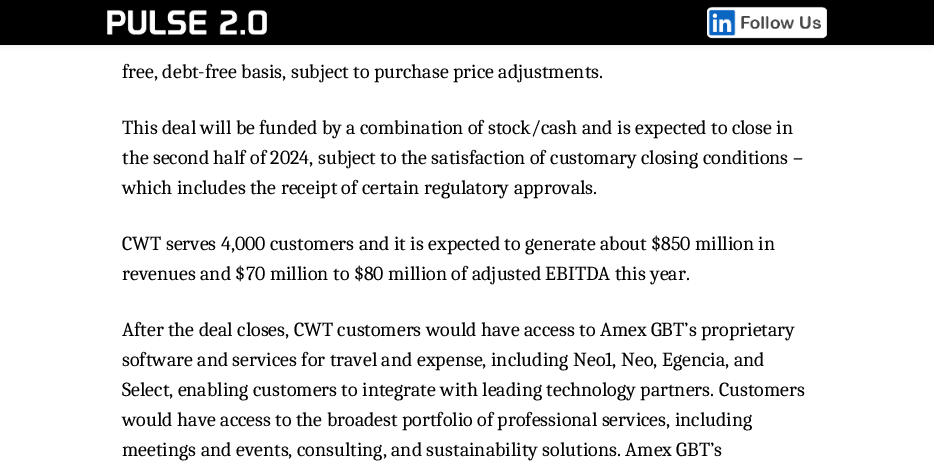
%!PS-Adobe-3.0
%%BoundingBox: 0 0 934 469
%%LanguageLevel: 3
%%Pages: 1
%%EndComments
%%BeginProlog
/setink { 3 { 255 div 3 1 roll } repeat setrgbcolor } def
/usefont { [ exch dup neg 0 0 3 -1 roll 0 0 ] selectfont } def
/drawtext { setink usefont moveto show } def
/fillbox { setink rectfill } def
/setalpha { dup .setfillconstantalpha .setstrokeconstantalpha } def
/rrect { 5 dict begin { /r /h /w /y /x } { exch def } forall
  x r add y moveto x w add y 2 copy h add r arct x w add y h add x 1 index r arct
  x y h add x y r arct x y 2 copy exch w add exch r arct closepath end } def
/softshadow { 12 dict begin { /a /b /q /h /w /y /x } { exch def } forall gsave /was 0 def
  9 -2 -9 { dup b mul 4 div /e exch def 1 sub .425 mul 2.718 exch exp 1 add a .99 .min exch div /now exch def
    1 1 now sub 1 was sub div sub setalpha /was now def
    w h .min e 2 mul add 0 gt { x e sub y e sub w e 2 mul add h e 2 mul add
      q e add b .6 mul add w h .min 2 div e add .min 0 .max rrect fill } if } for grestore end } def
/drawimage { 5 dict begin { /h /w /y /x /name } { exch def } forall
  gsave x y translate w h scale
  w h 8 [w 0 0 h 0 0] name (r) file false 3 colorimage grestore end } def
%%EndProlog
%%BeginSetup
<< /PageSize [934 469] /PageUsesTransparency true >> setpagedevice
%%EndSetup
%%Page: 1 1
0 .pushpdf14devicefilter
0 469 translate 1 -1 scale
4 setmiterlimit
0 0 934 469 255 255 255 fillbox
0 0 0 setink
-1 -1 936 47 0 2.5 0.08 softshadow
0 0 934 45 0 0 0 fillbox
(assets/img1.rgb) 107 9 160 26 drawimage
(assets/img2.rgb) 707 6 120 33 drawimage
(free, debt-free basis, subject to purchase price adjustments.) 122 78 /Caladea-Regular 20 0 0 0 drawtext
(This deal will be funded by a combination of stock/cash and is expected to close in) 122 134 /Caladea-Regular 20 0 0 0 drawtext
(the second half of 2024, subject to the satisfaction of customary closing conditions –) 122 164 /Caladea-Regular 20 0 0 0 drawtext
(which includes the receipt of certain regulatory approvals.) 122 194 /Caladea-Regular 20 0 0 0 drawtext
(CWT serves 4,000 customers and it is expected to generate about $850 million in) 122 250 /Caladea-Regular 20 0 0 0 drawtext
(revenues and $70 million to $80 million of adjusted EBITDA this year.) 122 280 /Caladea-Regular 20 0 0 0 drawtext
(After the deal closes, CWT customers would have access to Amex GBT’s proprietary) 122 336 /Caladea-Regular 20 0 0 0 drawtext
(software and services for travel and expense, including Neo1, Neo, Egencia, and) 122 366 /Caladea-Regular 20 0 0 0 drawtext
(Select, enabling customers to integrate with leading technology partners. Customers) 122 396 /Caladea-Regular 20 0 0 0 drawtext
(would have access to the broadest portfolio of professional services, including) 122 426 /Caladea-Regular 20 0 0 0 drawtext
(meetings and events, consulting, and sustainability solutions. Amex GBT’s) 122 456 /Caladea-Regular 20 0 0 0 drawtext
.poppdf14devicefilter showpage
%%EOF
